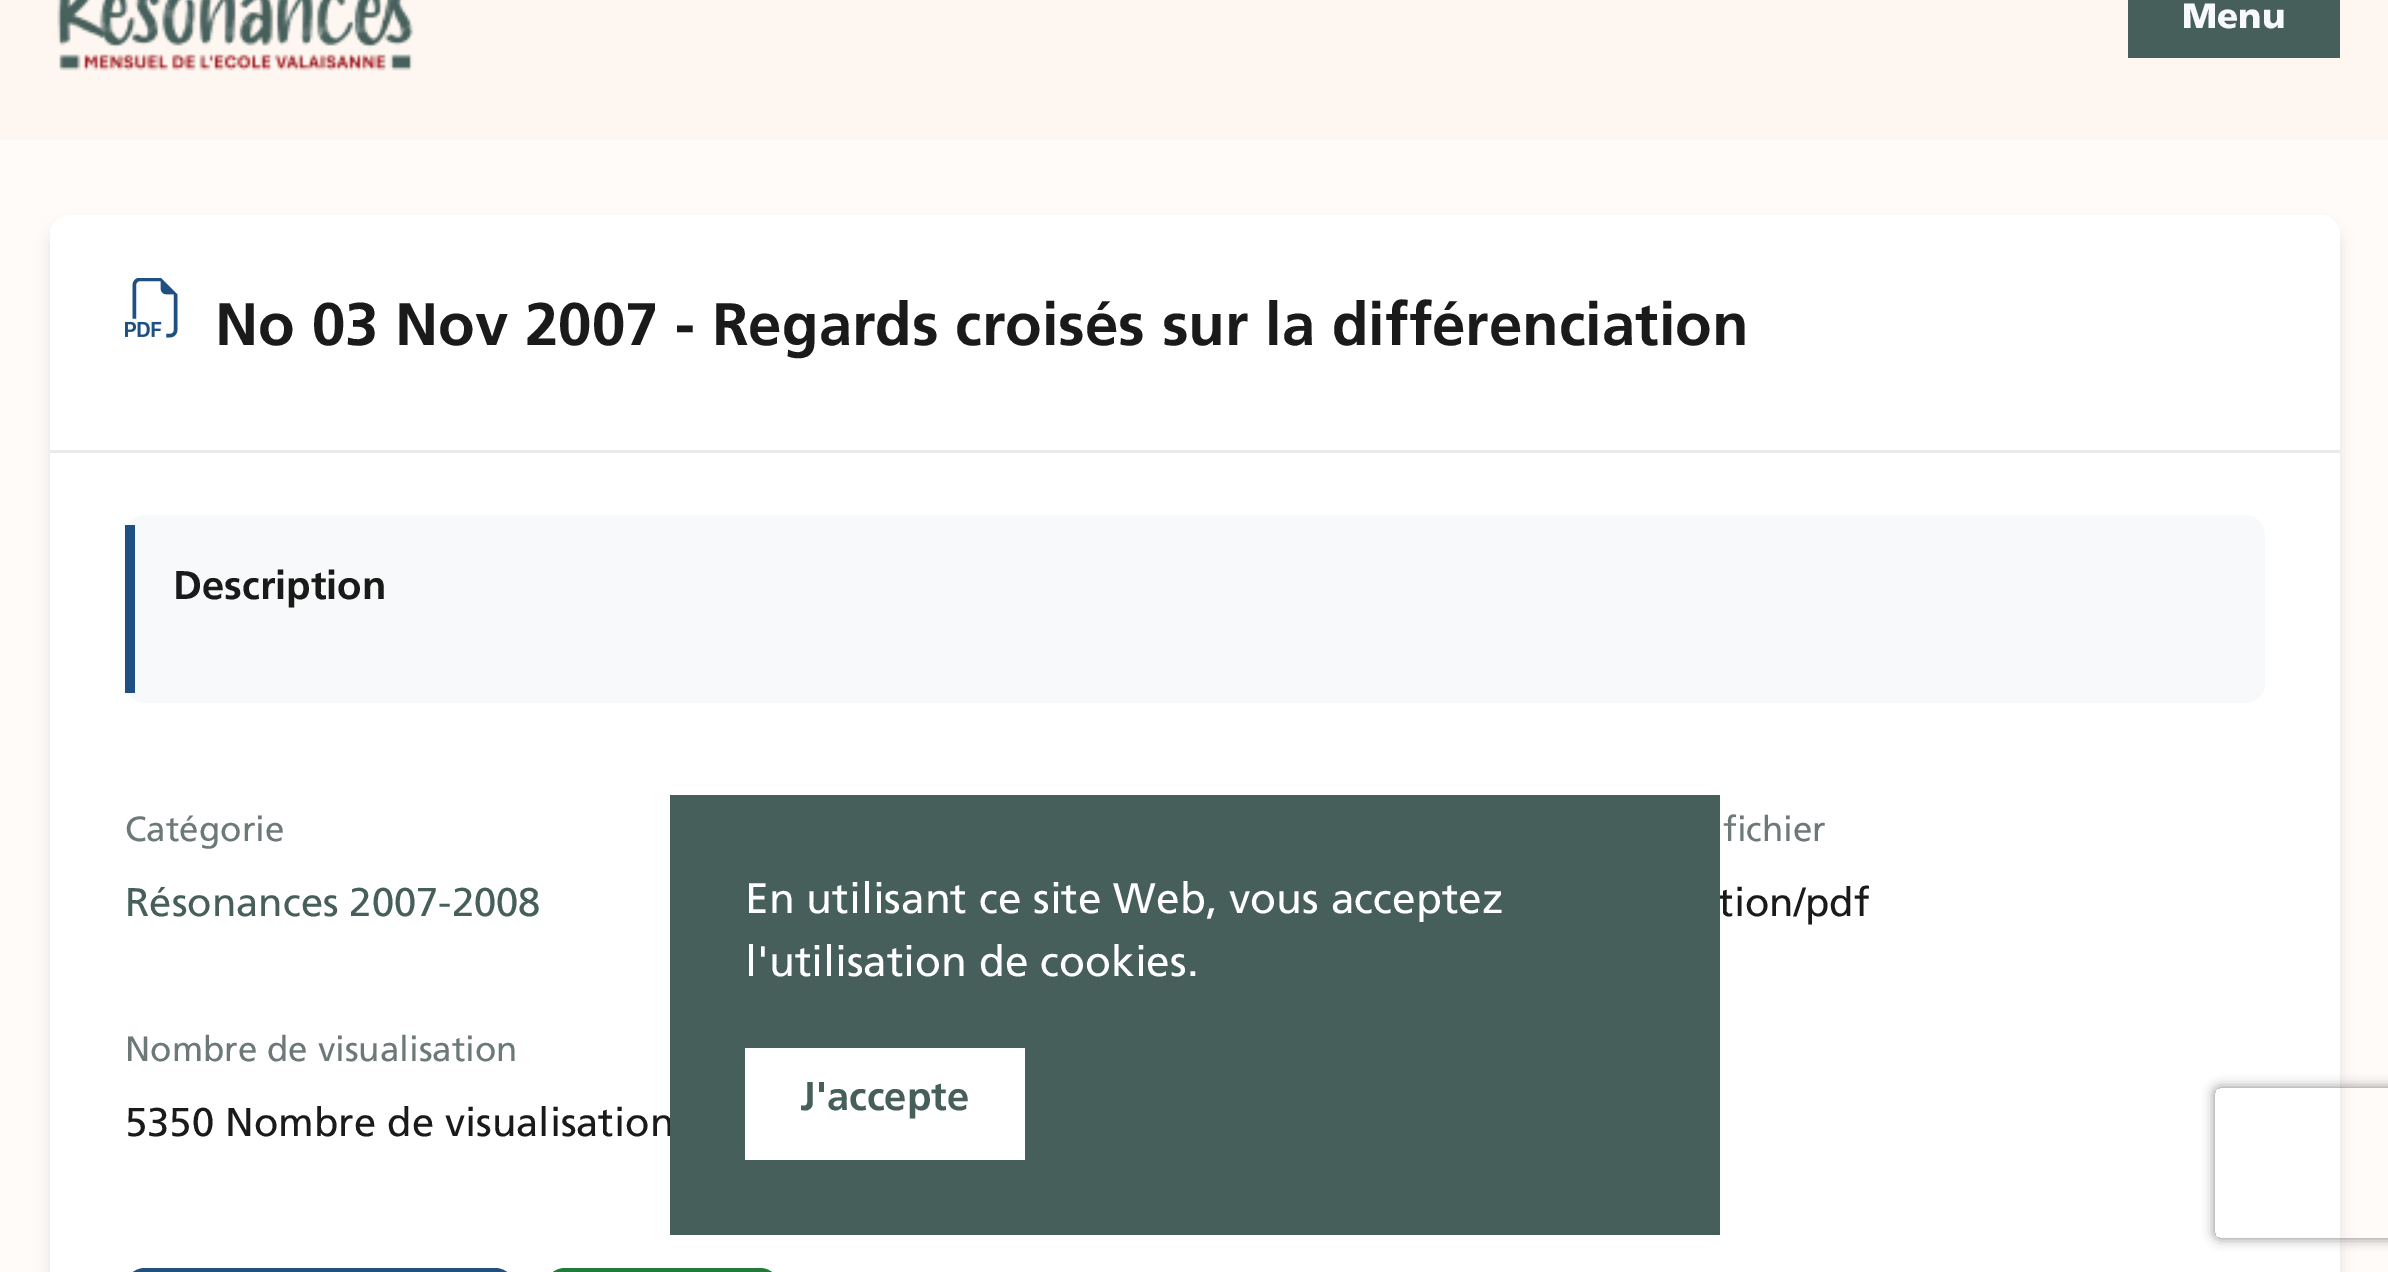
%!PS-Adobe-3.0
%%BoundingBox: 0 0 2388 1272
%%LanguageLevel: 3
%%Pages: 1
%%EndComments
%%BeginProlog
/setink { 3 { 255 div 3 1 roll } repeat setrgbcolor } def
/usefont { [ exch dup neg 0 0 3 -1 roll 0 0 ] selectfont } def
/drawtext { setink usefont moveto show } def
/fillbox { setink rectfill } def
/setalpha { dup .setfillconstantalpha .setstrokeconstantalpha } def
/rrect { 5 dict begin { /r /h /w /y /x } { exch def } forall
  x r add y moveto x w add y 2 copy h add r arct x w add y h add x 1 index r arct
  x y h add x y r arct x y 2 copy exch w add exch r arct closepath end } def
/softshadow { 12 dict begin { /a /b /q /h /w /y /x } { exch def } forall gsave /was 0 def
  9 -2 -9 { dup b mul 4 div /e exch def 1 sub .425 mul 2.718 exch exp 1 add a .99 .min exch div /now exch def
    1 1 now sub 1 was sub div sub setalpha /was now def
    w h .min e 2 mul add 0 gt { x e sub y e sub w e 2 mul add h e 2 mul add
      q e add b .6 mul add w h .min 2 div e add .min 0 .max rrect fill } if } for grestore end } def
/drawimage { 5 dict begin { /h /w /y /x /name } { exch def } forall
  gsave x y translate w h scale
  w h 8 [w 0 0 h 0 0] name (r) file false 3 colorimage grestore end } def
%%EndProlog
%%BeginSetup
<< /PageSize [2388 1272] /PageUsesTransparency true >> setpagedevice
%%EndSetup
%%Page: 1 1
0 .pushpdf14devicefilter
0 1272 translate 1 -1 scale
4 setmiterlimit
0 0 2388 1272 254 247 241 fillbox
(assets/img1.rgb) 57 0 357 71 drawimage
2128 0 212 58 71 95 91 fillbox
(Menu) 2182 28 /Frutiger-Black 35 248 249 250 drawtext
0 140 2388 1132 255 251 249 fillbox
0 0 0 setink
50 225 2290 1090 20 7.5 0.1 softshadow
255 255 255 setink
50 215 2290 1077 20 rrect fill
70 215 moveto 2320 215 lineto 2331 215 2340 224 2340 235 curveto 2340 453 lineto 50 453 lineto 50 235 lineto 50 224 59 215 70 215 curveto closepath fill
50 450 2290 3 234 234 234 fillbox
(assets/img2.rgb) 125 278 53 60 drawimage
(No 03 Nov 2007 - Regards croisés sur la différenciation) 215 345 /Frutiger-Bold 60 26 26 26 drawtext
248 249 250 setink
125 515 2140 188 20 rrect fill
125 525 10 168 32 80 129 fillbox
(Description) 173 599 /Frutiger-Bold 40 26 26 26 drawtext
(Catégorie) 125 841 /Frutiger-Regular 35 109 120 121 drawtext
(Résonances 2007-2008) 125 916 /Frutiger-Regular 40 71 95 91 drawtext
(fichier) 1723 841 /Frutiger-Regular 35 109 120 121 drawtext
(tion/pdf) 1718 916 /Frutiger-Regular 40 26 26 26 drawtext
(Nombre de visualisation) 125 1061 /Frutiger-Regular 35 109 120 121 drawtext
(5350 Nombre de visualisation) 125 1136 /Frutiger-Regular 40 26 26 26 drawtext
32 80 129 setink
125 1268 390 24 20 rrect fill
33 122 59 setink
545 1268 235 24 20 rrect fill
670 795 1050 440 71 95 91 fillbox
(En utilisant ce site Web, vous acceptez) 745 913 /Frutiger-Regular 42.5 255 255 255 drawtext
(l'utilisation de cookies.) 745 976 /Frutiger-Regular 42.5 255 255 255 drawtext
745 1048 280 112 255 255 255 fillbox
(J'accepte) 800 1110 /Frutiger-Bold 40 71 95 91 drawtext
gsave
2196 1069 moveto 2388 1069 lineto 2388 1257 lineto 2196 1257 lineto closepath 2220 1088 moveto 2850 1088 lineto 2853 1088 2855 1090 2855 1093 curveto 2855 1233 lineto 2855 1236 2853 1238 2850 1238 curveto 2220 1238 lineto 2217 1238 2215 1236 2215 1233 curveto 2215 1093 lineto 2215 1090 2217 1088 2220 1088 curveto closepath eoclip newpath
128 128 128 setink
2215 1088 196 150 5 6 1 softshadow
grestore
.poppdf14devicefilter showpage
%%EOF
